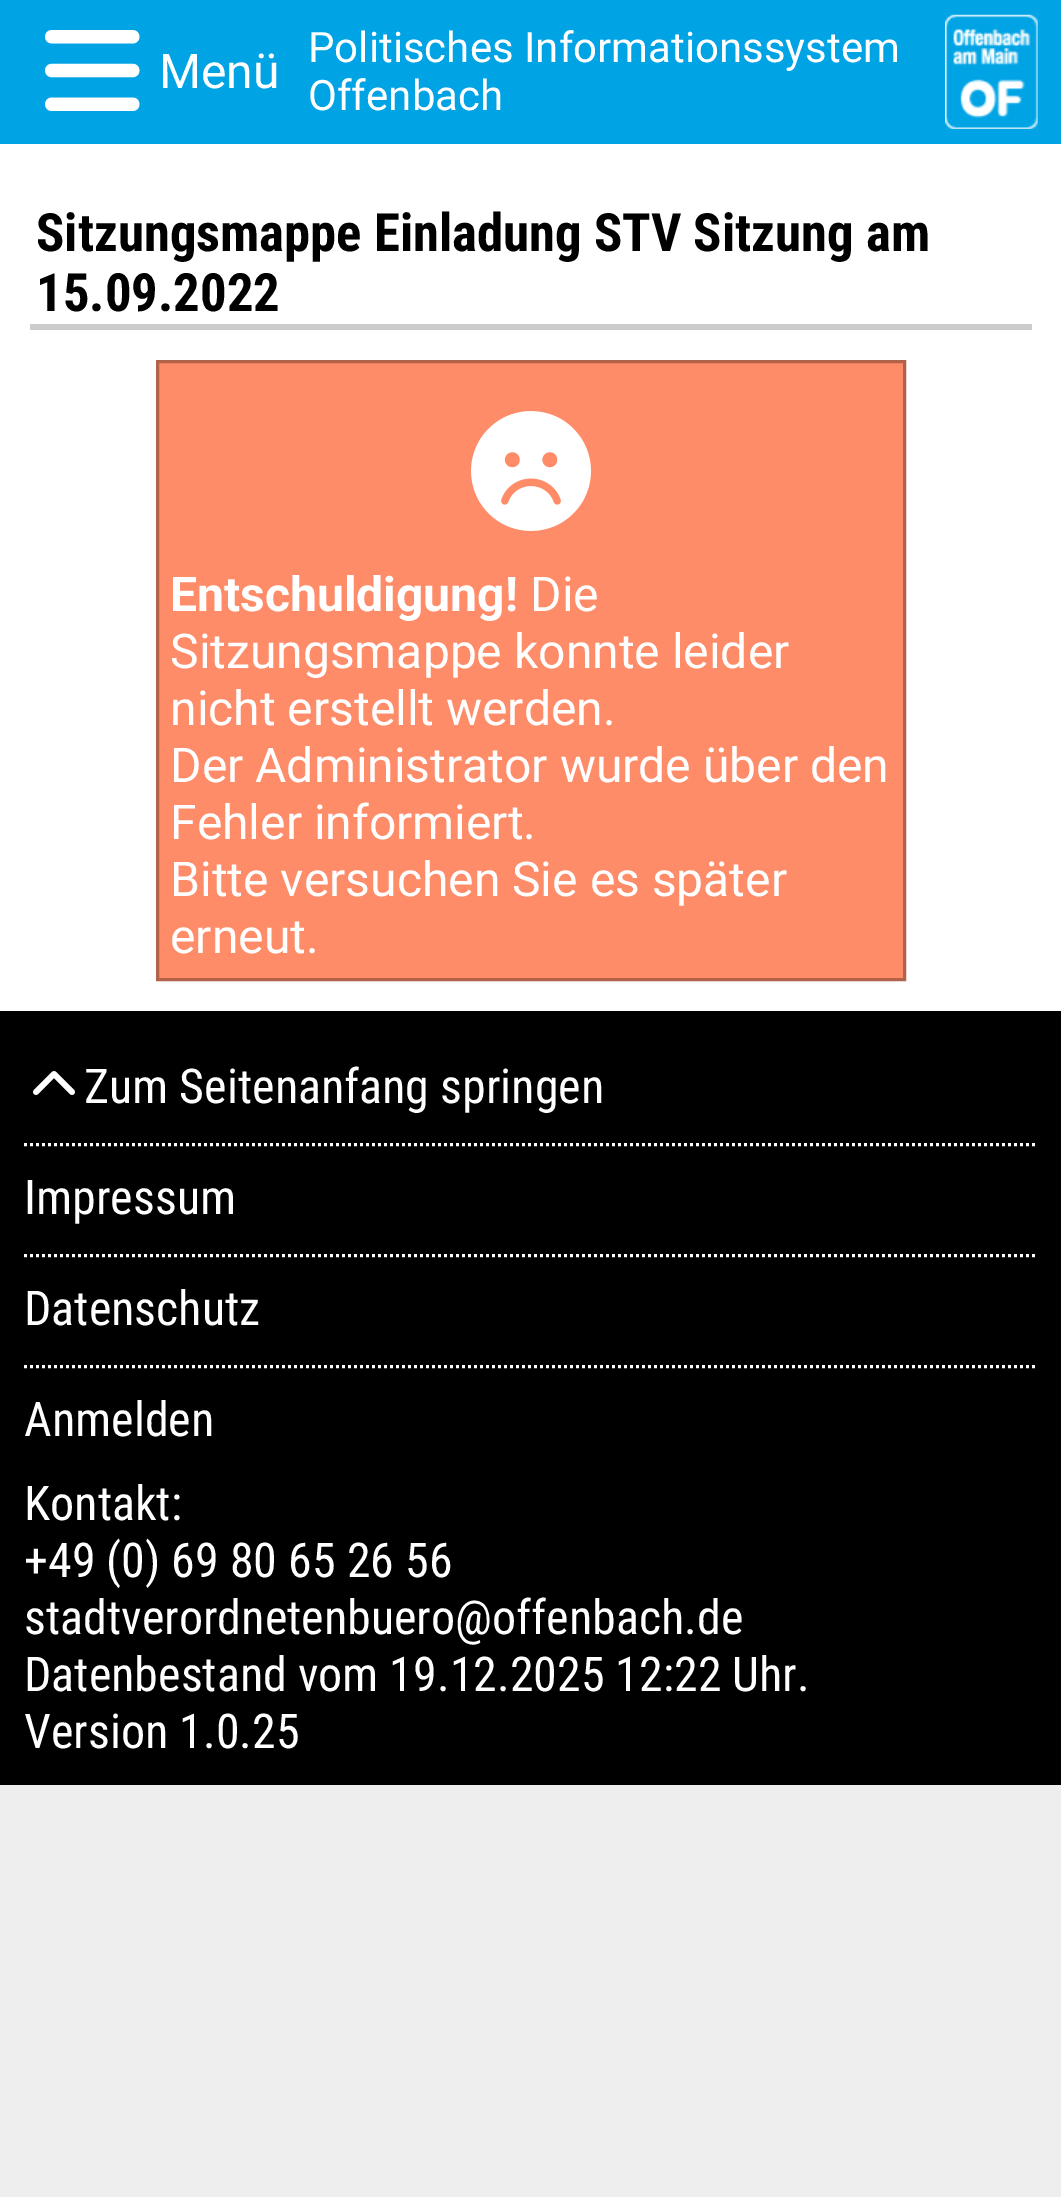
%!PS-Adobe-3.0
%%BoundingBox: 0 0 1061 2197
%%LanguageLevel: 3
%%Pages: 1
%%EndComments
%%BeginProlog
/setink { 3 { 255 div 3 1 roll } repeat setrgbcolor } def
/usefont { [ exch dup neg 0 0 3 -1 roll 0 0 ] selectfont } def
/drawtext { setink usefont moveto show } def
/fillbox { setink rectfill } def
/drawimage { 5 dict begin { /h /w /y /x /name } { exch def } forall
  gsave x y translate w h scale
  w h 8 [w 0 0 h 0 0] name (r) file false 3 colorimage grestore end } def
%%EndProlog
%%BeginSetup
<< /PageSize [1061 2197] >> setpagedevice
%%EndSetup
%%Page: 1 1
0 2197 translate 1 -1 scale
4 setmiterlimit
0 0 1061 2197 238 238 238 fillbox
0 144 1061 867 255 255 255 fillbox
0 0 1061 144 0 163 228 fillbox
(assets/img1.rgb) 45 30 95 81 drawimage
(Menü) 159 88 /Roboto-Regular 48 255 255 255 drawtext
(Politisches Informationssystem) 308 62 /Roboto-Regular 42 255 255 255 drawtext
(Offenbach) 308 110 /Roboto-Regular 42 255 255 255 drawtext
(assets/img2.rgb) 945 14 93 115 drawimage
30 324 1002 6 204 204 204 fillbox
(Sitzungsmappe Einladung STV Sitzung am) 36 251 /RobotoCondensed-Bold 52.75 0 0 0 drawtext
(15.09.2022) 36 311 /RobotoCondensed-Bold 52.75 0 0 0 drawtext
255 140 105 setink
157.5 361.5 moveto 904.5 361.5 lineto 904.5 979.5 lineto 157.5 979.5 lineto closepath gsave fill grestore
179 98 74 setink
3 setlinewidth
stroke
(assets/img3.rgb) 471 411 120 120 drawimage
(Entschuldigung!) 170 611 /Roboto-Bold 48 255 255 255 drawtext
(Die) 530 611 /Roboto-Regular 48 255 255 255 drawtext
(Sitzungsmappe konnte leider) 170 668 /Roboto-Regular 48 255 255 255 drawtext
(nicht erstellt werden.) 170 725 /Roboto-Regular 48 255 255 255 drawtext
(Der Administrator wurde über den) 170 782 /Roboto-Regular 48 255 255 255 drawtext
(Fehler informiert.) 170 839 /Roboto-Regular 48 255 255 255 drawtext
(Bitte versuchen Sie es später) 170 896 /Roboto-Regular 48 255 255 255 drawtext
(erneut.) 170 953 /Roboto-Regular 48 255 255 255 drawtext
0 1011 1061 774 0 0 0 fillbox
255 255 255 setink
[3 3] 0 setdash
24 1144.5 moveto 1038 1144.5 lineto stroke
(assets/img4.rgb) 33 1071 42 24 drawimage
(Zum Seitenanfang springen) 84 1103 /RobotoCondensed-Regular 48 255 255 255 drawtext
24 1255.5 moveto 1038 1255.5 lineto stroke
(Impressum) 24 1214 /RobotoCondensed-Regular 48 255 255 255 drawtext
24 1366.5 moveto 1038 1366.5 lineto stroke
(Datenschutz) 24 1325 /RobotoCondensed-Regular 48 255 255 255 drawtext
(Anmelden) 24 1436 /RobotoCondensed-Regular 48 255 255 255 drawtext
(Kontakt:) 24 1520 /RobotoCondensed-Regular 48 255 255 255 drawtext
(+49 \(0\) 69 80 65 26 56) 24 1577 /RobotoCondensed-Regular 48 255 255 255 drawtext
(stadtverordnetenbuero@offenbach.de) 24 1634 /RobotoCondensed-Regular 48 255 255 255 drawtext
(Datenbestand vom 19.12.2025 12:22 Uhr.) 24 1691 /RobotoCondensed-Regular 48 255 255 255 drawtext
(Version 1.0.25) 24 1748 /RobotoCondensed-Regular 48 255 255 255 drawtext
showpage
%%EOF
